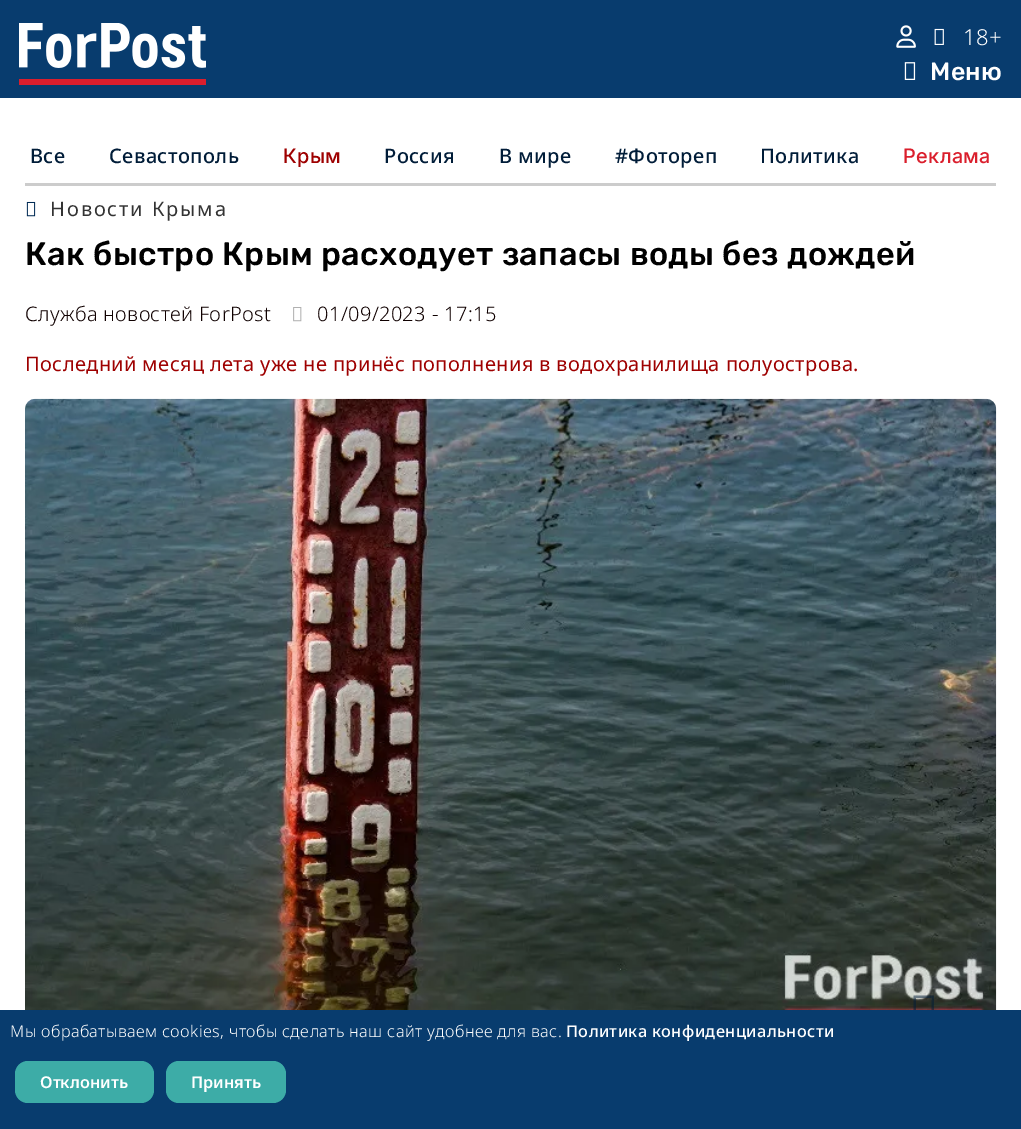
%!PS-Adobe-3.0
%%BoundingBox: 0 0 1021 1129
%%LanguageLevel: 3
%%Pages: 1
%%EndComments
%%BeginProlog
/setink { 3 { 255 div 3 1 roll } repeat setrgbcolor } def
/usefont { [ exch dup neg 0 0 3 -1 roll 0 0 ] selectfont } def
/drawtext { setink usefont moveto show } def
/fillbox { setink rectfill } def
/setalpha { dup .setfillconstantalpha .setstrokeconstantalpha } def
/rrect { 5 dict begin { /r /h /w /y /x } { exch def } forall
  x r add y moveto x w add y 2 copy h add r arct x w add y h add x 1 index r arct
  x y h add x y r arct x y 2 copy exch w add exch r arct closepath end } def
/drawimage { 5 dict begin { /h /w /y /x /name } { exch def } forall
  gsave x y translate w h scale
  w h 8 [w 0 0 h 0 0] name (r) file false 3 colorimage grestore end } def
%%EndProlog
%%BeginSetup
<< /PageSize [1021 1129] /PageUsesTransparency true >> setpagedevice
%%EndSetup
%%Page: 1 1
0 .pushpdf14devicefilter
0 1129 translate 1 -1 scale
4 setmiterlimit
0 0 1021 1129 255 255 255 fillbox
0 0 1021 98 8 60 110 fillbox
(assets/img1.rgb) 19 23 187 62 drawimage
(assets/img2.rgb) 896 25 20 23 drawimage
(assets/img3.rgb) 934 28 10 17 drawimage
/NotoSans-Light 22 usefont
255 255 255 setink
963 45 moveto 0.38 0 (18+) ashow
(assets/img4.rgb) 904 62 12 18 drawimage
/Rubik-Medium 25 usefont
930 80 moveto 0.38 0 (Меню) ashow
25 183 971 3 204 204 204 fillbox
/NotoSans-Medium 20 usefont
0 28 56 setink
30 163 moveto 0.38 0 (Все) ashow
109 163 moveto 0.38 0 (Севастополь) ashow
/Inter-Medium 20 usefont
158 0 0 setink
283 163 moveto 0.38 0 (Крым) ashow
/NotoSans-Medium 20 usefont
0 28 56 setink
384 163 moveto 0.38 0 (Россия) ashow
499 163 moveto 0.38 0 (В мире) ashow
615 163 moveto 0.38 0 (#Фотореп) ashow
760 163 moveto 0.38 0 (Политика) ashow
/Inter-Medium 20 usefont
218 30 44 setink
903 163 moveto 0.38 0 (Реклама) ashow
(assets/img5.rgb) 26 201 10 16 drawimage
/NotoSans-Regular 20 usefont
51 51 51 setink
50 216 moveto 1.9 0 (Новости Крыма) ashow
/Rubik-Medium 32.5 usefont
0 0 0 setink
25 265 moveto 0.38 0 (Как быстро Крым расходует запасы воды без дождей) ashow
/NotoSans-Light 20 usefont
15 0 0 setink
25 321 moveto 0.38 0 (Служба новостей ForPost) ashow
(assets/img6.rgb) 293 307 9 15 drawimage
317 321 moveto 0.38 0 (01/09/2023 - 17:15) ashow
/NotoSans-Regular 20 usefont
158 0 0 setink
25 371 moveto 0.38 0 (Последний месяц лета уже не принёс пополнения в водохранилища полуострова.) ashow
(assets/img7.rgb) 25 398 972 612 drawimage
0.5 setalpha
0 28 56 setink
913.5 1031 moveto 913.5 995.5 lineto 934 995.5 lineto 934 1031 lineto closepath 916 1028.5 moveto 931.5 1028.5 lineto 931.5 998 lineto 916 998 lineto closepath fill
1 setalpha
0 1010 1021 119 8 60 110 fillbox
/NotoSans-Light 16.25 usefont
255 255 255 setink
10 1037 moveto 0.38 0 (Мы обрабатываем cookies, чтобы сделать наш сайт удобнее для вас.) ashow
/NotoSans-Medium 16.25 usefont
566 1037 moveto 0.38 0 (Политика конфиденциальности) ashow
61 172 167 setink
15 1061 139 42 13 rrect fill
(Отклонить) 40 1088 /NotoSans-SemiBold 16.25 255 255 255 drawtext
61 172 167 setink
166 1061 120 42 13 rrect fill
(Принять) 191 1088 /NotoSans-SemiBold 16.25 255 255 255 drawtext
.poppdf14devicefilter showpage
%%EOF
